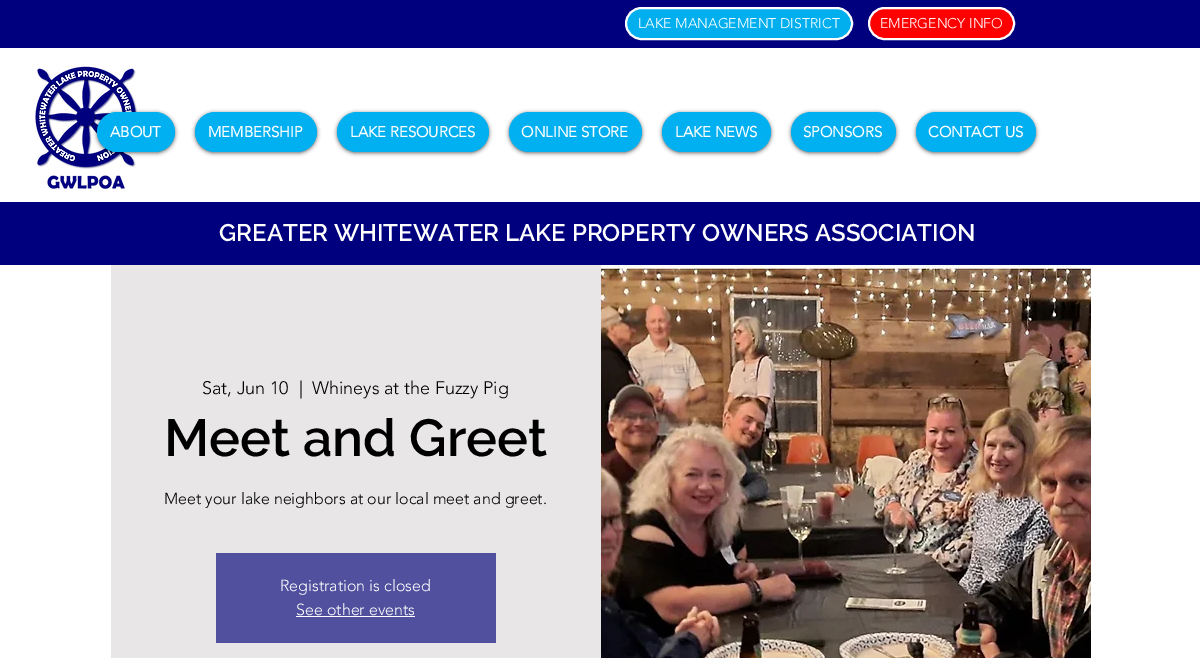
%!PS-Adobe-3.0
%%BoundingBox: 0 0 1200 658
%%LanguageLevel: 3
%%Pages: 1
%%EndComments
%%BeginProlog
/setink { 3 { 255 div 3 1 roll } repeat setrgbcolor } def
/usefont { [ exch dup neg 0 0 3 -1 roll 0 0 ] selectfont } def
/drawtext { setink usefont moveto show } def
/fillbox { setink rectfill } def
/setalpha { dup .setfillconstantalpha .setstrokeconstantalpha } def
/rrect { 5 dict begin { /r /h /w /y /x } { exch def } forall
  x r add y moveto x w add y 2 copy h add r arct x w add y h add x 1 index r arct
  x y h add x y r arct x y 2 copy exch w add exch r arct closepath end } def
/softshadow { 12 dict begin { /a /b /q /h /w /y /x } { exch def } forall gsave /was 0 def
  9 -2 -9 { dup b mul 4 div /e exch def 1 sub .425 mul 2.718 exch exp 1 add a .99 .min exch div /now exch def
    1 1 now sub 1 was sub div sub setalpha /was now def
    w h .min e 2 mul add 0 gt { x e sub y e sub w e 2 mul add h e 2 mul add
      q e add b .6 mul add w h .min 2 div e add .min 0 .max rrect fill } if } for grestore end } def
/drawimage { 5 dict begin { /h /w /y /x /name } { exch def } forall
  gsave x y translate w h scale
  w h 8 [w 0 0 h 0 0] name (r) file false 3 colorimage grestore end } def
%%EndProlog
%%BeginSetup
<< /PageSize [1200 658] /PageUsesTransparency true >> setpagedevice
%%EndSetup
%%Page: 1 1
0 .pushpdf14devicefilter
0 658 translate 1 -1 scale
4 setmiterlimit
0 0 1200 658 255 255 255 fillbox
0 0 1200 48 0 0 127 fillbox
1 175 239 setink
626 8 226 31 15.5 rrect gsave fill grestore
255 255 255 setink
2 setlinewidth
stroke
(LAKE MANAGEMENT DISTRICT) 638 28 /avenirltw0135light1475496-Light 14 255 255 255 drawtext
255 0 0 setink
869 8 145 31 15.5 rrect gsave fill grestore
255 255 255 setink
stroke
(EMERGENCY INFO) 880 28 /avenirltw0135light1475496-Light 14 255 255 255 drawtext
(assets/img1.rgb) 35 66 102 123 drawimage
0 0 0 setink
97 113 78 40 20 2 0.6 softshadow
1 176 241 setink
97 112 78 40 20 rrect fill
(ABOUT) 110 137 /avenirltw0135light1475496-Bold 15 255 255 255 drawtext
0 0 0 setink
195 113 122 40 20 2 0.6 softshadow
1 176 241 setink
195 112 122 40 20 rrect fill
(MEMBERSHIP) 208 137 /avenirltw0135light1475496-Bold 15 255 255 255 drawtext
0 0 0 setink
337 113 152 40 20 2 0.6 softshadow
1 176 241 setink
337 112 152 40 20 rrect fill
(LAKE RESOURCES) 350 137 /avenirltw0135light1475496-Bold 15 255 255 255 drawtext
0 0 0 setink
509 113 133 40 20 2 0.6 softshadow
1 176 241 setink
509 112 133 40 20 rrect fill
(ONLINE STORE) 521 137 /avenirltw0135light1475496-Bold 15 255 255 255 drawtext
0 0 0 setink
662 113 109 40 20 2 0.6 softshadow
1 176 241 setink
662 112 109 40 20 rrect fill
(LAKE NEWS) 675 137 /avenirltw0135light1475496-Bold 15 255 255 255 drawtext
0 0 0 setink
791 113 105 40 20 2 0.6 softshadow
1 176 241 setink
791 112 105 40 20 rrect fill
(SPONSORS) 803 137 /avenirltw0135light1475496-Bold 15 255 255 255 drawtext
0 0 0 setink
916 113 120 40 20 2 0.6 softshadow
1 176 241 setink
916 112 120 40 20 rrect fill
(CONTACT US) 928 137 /avenirltw0135light1475496-Bold 15 255 255 255 drawtext
0 202 1200 63 0 0 127 fillbox
(GREATER WHITEWATER LAKE PROPERTY OWNERS ASSOCIATION) 219 241 /Raleway-SemiBold 24 255 255 255 drawtext
111 265 490 393 232 230 230 fillbox
(Sat, Jun 10) 202 394 /avenirltw0135light1475496-Light 18 0 0 0 drawtext
(|) 299 394 /avenirltw0135light1475496-Light 18 0 0 0 drawtext
(Whineys at the Fuzzy Pig) 312 394 /avenirltw0135light1475496-Light 18 0 0 0 drawtext
(Meet and Greet) 164 456 /Raleway-SemiBold 52 0 0 0 drawtext
(Meet your lake neighbors at our local meet and greet.) 164 504 /avenirltw0135light1475496-Light 16 0 0 0 drawtext
216 553 280 90 80 80 159 fillbox
(Registration is closed) 280 591 /avenirltw0135light1475496-Light 16 255 255 255 drawtext
(See other events) 296 615 /avenirltw0135light1475496-Light 16 255 255 255 drawtext
296 616 119 1 255 255 255 fillbox
(assets/img2.rgb) 601 265 490 393 drawimage
.poppdf14devicefilter showpage
%%EOF
